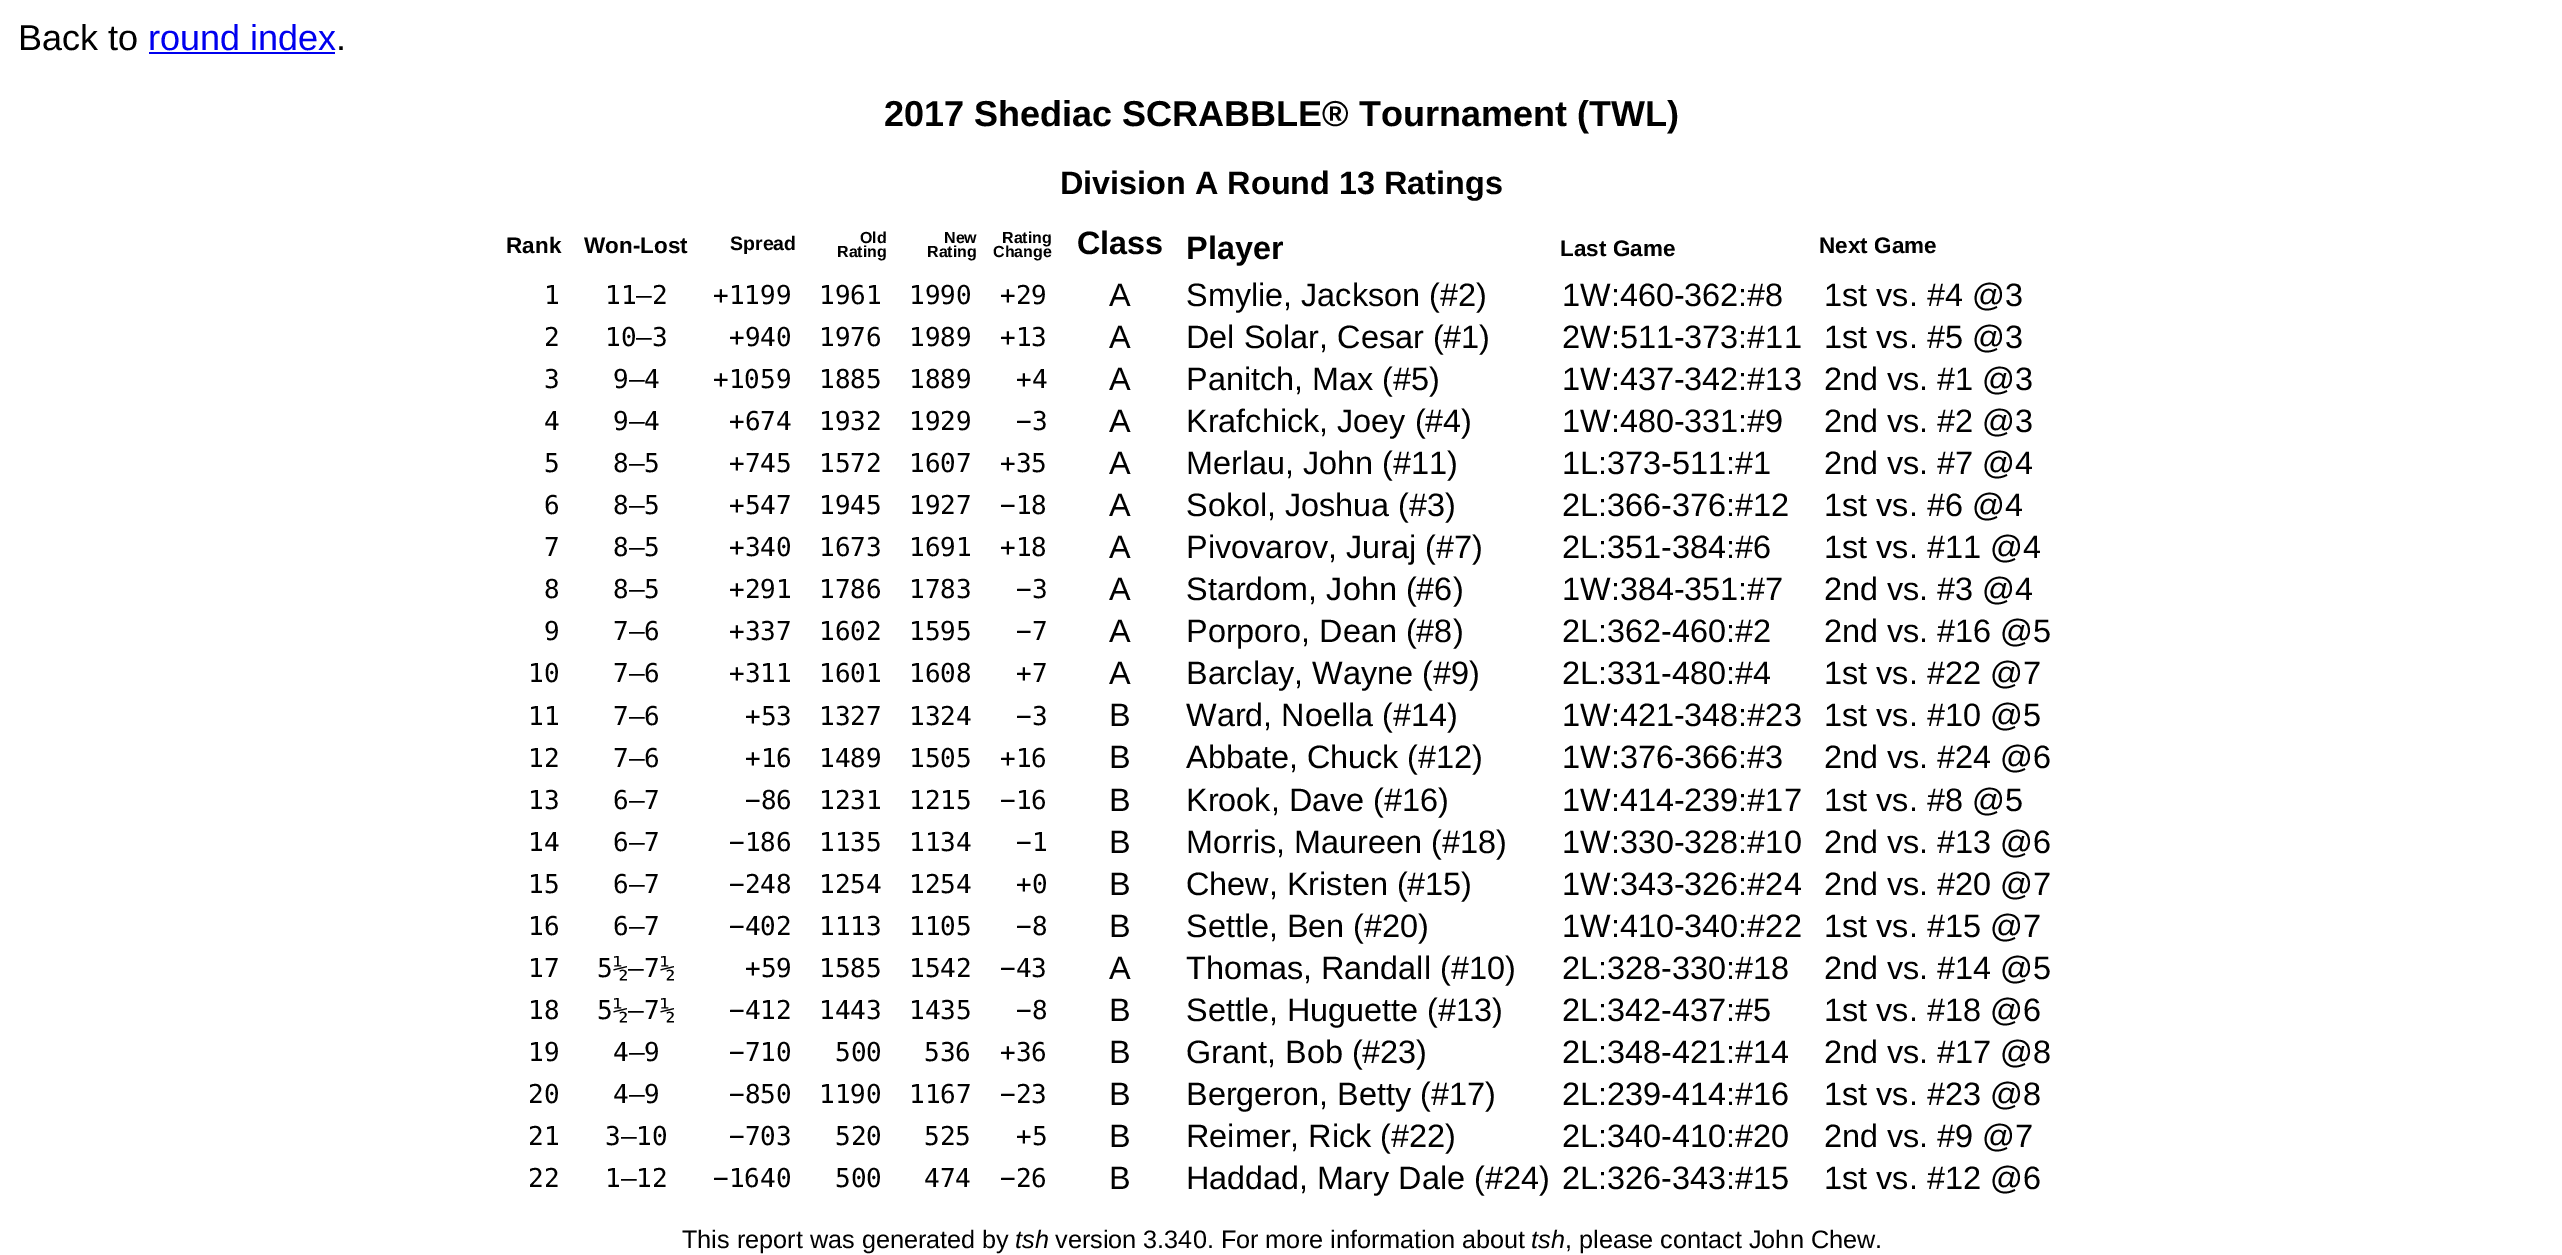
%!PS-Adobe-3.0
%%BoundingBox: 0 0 2562 1255
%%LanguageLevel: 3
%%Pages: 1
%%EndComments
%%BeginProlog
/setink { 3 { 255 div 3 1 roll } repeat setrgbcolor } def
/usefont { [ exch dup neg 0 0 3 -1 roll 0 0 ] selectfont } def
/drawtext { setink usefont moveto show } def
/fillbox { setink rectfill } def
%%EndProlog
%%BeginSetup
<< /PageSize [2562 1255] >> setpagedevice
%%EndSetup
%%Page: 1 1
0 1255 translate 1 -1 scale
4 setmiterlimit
0 0 2562 1255 255 255 255 fillbox
(Back to) 18 50 /LiberationSans-Regular 36 0 0 0 drawtext
(round index) 148 50 /LiberationSans-Regular 36 0 0 238 drawtext
149 52 186 2 0 0 238 fillbox
(.) 336 50 /LiberationSans-Regular 36 0 0 0 drawtext
(2017 Shediac SCRABBLE® Tournament \(TWL\)) 884 126 /LiberationSans-Bold 36 0 0 0 drawtext
(Division A Round 13 Ratings) 1060 194 /LiberationSans-Bold 32.4 0 0 0 drawtext
(Rank) 506 253 /LiberationSans-Bold 22.5 0 0 0 drawtext
(Won-Lost) 584 253 /LiberationSans-Bold 22.5 0 0 0 drawtext
(Spread) 730 250 /LiberationSans-Bold 19.5 0 0 0 drawtext
(Old) 860 243 /LiberationSans-Bold 16 0 0 0 drawtext
(Rating) 837 257 /LiberationSans-Bold 16 0 0 0 drawtext
(New) 944 243 /LiberationSans-Bold 16 0 0 0 drawtext
(Rating) 927 257 /LiberationSans-Bold 16 0 0 0 drawtext
(Rating) 1002 243 /LiberationSans-Bold 16 0 0 0 drawtext
(Change) 993 257 /LiberationSans-Bold 16 0 0 0 drawtext
(Class) 1077 254 /LiberationSans-Bold 32.4 0 0 0 drawtext
(Player) 1186 259 /LiberationSans-Bold 32.4 0 0 0 drawtext
(Last Game) 1560 256 /LiberationSans-Bold 22.5 0 0 0 drawtext
(Next Game) 1819 253 /LiberationSans-Bold 22.5 0 0 0 drawtext
(1) 544 304 /DejaVuSansMono-Regular 26 0 0 0 drawtext
(11–2) 605 304 /DejaVuSansMono-Regular 26 0 0 0 drawtext
(+1199) 713 304 /DejaVuSansMono-Regular 26 0 0 0 drawtext
(1961) 819 304 /DejaVuSansMono-Regular 26 0 0 0 drawtext
(1990) 909 304 /DejaVuSansMono-Regular 26 0 0 0 drawtext
(+29) 1000 304 /DejaVuSansMono-Regular 26 0 0 0 drawtext
(A) 1109 306 /LiberationSans-Regular 32.4 0 0 0 drawtext
(Smylie, Jackson \(#2\)) 1186 306 /LiberationSans-Regular 32.4 0 0 0 drawtext
(1W:460-362:#8) 1562 306 /LiberationSans-Regular 32.4 0 0 0 drawtext
(1st vs. #4 @3) 1824 306 /LiberationSans-Regular 32.4 0 0 0 drawtext
(2) 544 346 /DejaVuSansMono-Regular 26 0 0 0 drawtext
(10–3) 605 346 /DejaVuSansMono-Regular 26 0 0 0 drawtext
(+940) 729 346 /DejaVuSansMono-Regular 26 0 0 0 drawtext
(1976) 819 346 /DejaVuSansMono-Regular 26 0 0 0 drawtext
(1989) 909 346 /DejaVuSansMono-Regular 26 0 0 0 drawtext
(+13) 1000 346 /DejaVuSansMono-Regular 26 0 0 0 drawtext
(A) 1109 348 /LiberationSans-Regular 32.4 0 0 0 drawtext
(Del Solar, Cesar \(#1\)) 1186 348 /LiberationSans-Regular 32.4 0 0 0 drawtext
(2W:511-373:#11) 1562 348 /LiberationSans-Regular 32.4 0 0 0 drawtext
(1st vs. #5 @3) 1824 348 /LiberationSans-Regular 32.4 0 0 0 drawtext
(3) 544 388 /DejaVuSansMono-Regular 26 0 0 0 drawtext
(9–4) 613 388 /DejaVuSansMono-Regular 26 0 0 0 drawtext
(+1059) 713 388 /DejaVuSansMono-Regular 26 0 0 0 drawtext
(1885) 819 388 /DejaVuSansMono-Regular 26 0 0 0 drawtext
(1889) 909 388 /DejaVuSansMono-Regular 26 0 0 0 drawtext
(+4) 1016 388 /DejaVuSansMono-Regular 26 0 0 0 drawtext
(A) 1109 390 /LiberationSans-Regular 32.4 0 0 0 drawtext
(Panitch, Max \(#5\)) 1186 390 /LiberationSans-Regular 32.4 0 0 0 drawtext
(1W:437-342:#13) 1562 390 /LiberationSans-Regular 32.4 0 0 0 drawtext
(2nd vs. #1 @3) 1824 390 /LiberationSans-Regular 32.4 0 0 0 drawtext
(4) 544 430 /DejaVuSansMono-Regular 26 0 0 0 drawtext
(9–4) 613 430 /DejaVuSansMono-Regular 26 0 0 0 drawtext
(+674) 729 430 /DejaVuSansMono-Regular 26 0 0 0 drawtext
(1932) 819 430 /DejaVuSansMono-Regular 26 0 0 0 drawtext
(1929) 909 430 /DejaVuSansMono-Regular 26 0 0 0 drawtext
(−3) 1016 430 /DejaVuSansMono-Regular 26 0 0 0 drawtext
(A) 1109 432 /LiberationSans-Regular 32.4 0 0 0 drawtext
(Krafchick, Joey \(#4\)) 1186 432 /LiberationSans-Regular 32.4 0 0 0 drawtext
(1W:480-331:#9) 1562 432 /LiberationSans-Regular 32.4 0 0 0 drawtext
(2nd vs. #2 @3) 1824 432 /LiberationSans-Regular 32.4 0 0 0 drawtext
(5) 544 472 /DejaVuSansMono-Regular 26 0 0 0 drawtext
(8–5) 613 472 /DejaVuSansMono-Regular 26 0 0 0 drawtext
(+745) 729 472 /DejaVuSansMono-Regular 26 0 0 0 drawtext
(1572) 819 472 /DejaVuSansMono-Regular 26 0 0 0 drawtext
(1607) 909 472 /DejaVuSansMono-Regular 26 0 0 0 drawtext
(+35) 1000 472 /DejaVuSansMono-Regular 26 0 0 0 drawtext
(A) 1109 474 /LiberationSans-Regular 32.4 0 0 0 drawtext
(Merlau, John \(#11\)) 1186 474 /LiberationSans-Regular 32.4 0 0 0 drawtext
(1L:373-511:#1) 1562 474 /LiberationSans-Regular 32.4 0 0 0 drawtext
(2nd vs. #7 @4) 1824 474 /LiberationSans-Regular 32.4 0 0 0 drawtext
(6) 544 514 /DejaVuSansMono-Regular 26 0 0 0 drawtext
(8–5) 613 514 /DejaVuSansMono-Regular 26 0 0 0 drawtext
(+547) 729 514 /DejaVuSansMono-Regular 26 0 0 0 drawtext
(1945) 819 514 /DejaVuSansMono-Regular 26 0 0 0 drawtext
(1927) 909 514 /DejaVuSansMono-Regular 26 0 0 0 drawtext
(−18) 1000 514 /DejaVuSansMono-Regular 26 0 0 0 drawtext
(A) 1109 516 /LiberationSans-Regular 32.4 0 0 0 drawtext
(Sokol, Joshua \(#3\)) 1186 516 /LiberationSans-Regular 32.4 0 0 0 drawtext
(2L:366-376:#12) 1562 516 /LiberationSans-Regular 32.4 0 0 0 drawtext
(1st vs. #6 @4) 1824 516 /LiberationSans-Regular 32.4 0 0 0 drawtext
(7) 544 556 /DejaVuSansMono-Regular 26 0 0 0 drawtext
(8–5) 613 556 /DejaVuSansMono-Regular 26 0 0 0 drawtext
(+340) 729 556 /DejaVuSansMono-Regular 26 0 0 0 drawtext
(1673) 819 556 /DejaVuSansMono-Regular 26 0 0 0 drawtext
(1691) 909 556 /DejaVuSansMono-Regular 26 0 0 0 drawtext
(+18) 1000 556 /DejaVuSansMono-Regular 26 0 0 0 drawtext
(A) 1109 558 /LiberationSans-Regular 32.4 0 0 0 drawtext
(Pivovarov, Juraj \(#7\)) 1186 558 /LiberationSans-Regular 32.4 0 0 0 drawtext
(2L:351-384:#6) 1562 558 /LiberationSans-Regular 32.4 0 0 0 drawtext
(1st vs. #11 @4) 1824 558 /LiberationSans-Regular 32.4 0 0 0 drawtext
(8) 544 598 /DejaVuSansMono-Regular 26 0 0 0 drawtext
(8–5) 613 598 /DejaVuSansMono-Regular 26 0 0 0 drawtext
(+291) 729 598 /DejaVuSansMono-Regular 26 0 0 0 drawtext
(1786) 819 598 /DejaVuSansMono-Regular 26 0 0 0 drawtext
(1783) 909 598 /DejaVuSansMono-Regular 26 0 0 0 drawtext
(−3) 1016 598 /DejaVuSansMono-Regular 26 0 0 0 drawtext
(A) 1109 600 /LiberationSans-Regular 32.4 0 0 0 drawtext
(Stardom, John \(#6\)) 1186 600 /LiberationSans-Regular 32.4 0 0 0 drawtext
(1W:384-351:#7) 1562 600 /LiberationSans-Regular 32.4 0 0 0 drawtext
(2nd vs. #3 @4) 1824 600 /LiberationSans-Regular 32.4 0 0 0 drawtext
(9) 544 640 /DejaVuSansMono-Regular 26 0 0 0 drawtext
(7–6) 613 640 /DejaVuSansMono-Regular 26 0 0 0 drawtext
(+337) 729 640 /DejaVuSansMono-Regular 26 0 0 0 drawtext
(1602) 819 640 /DejaVuSansMono-Regular 26 0 0 0 drawtext
(1595) 909 640 /DejaVuSansMono-Regular 26 0 0 0 drawtext
(−7) 1016 640 /DejaVuSansMono-Regular 26 0 0 0 drawtext
(A) 1109 642 /LiberationSans-Regular 32.4 0 0 0 drawtext
(Porporo, Dean \(#8\)) 1186 642 /LiberationSans-Regular 32.4 0 0 0 drawtext
(2L:362-460:#2) 1562 642 /LiberationSans-Regular 32.4 0 0 0 drawtext
(2nd vs. #16 @5) 1824 642 /LiberationSans-Regular 32.4 0 0 0 drawtext
(10) 528 682 /DejaVuSansMono-Regular 26 0 0 0 drawtext
(7–6) 613 682 /DejaVuSansMono-Regular 26 0 0 0 drawtext
(+311) 729 682 /DejaVuSansMono-Regular 26 0 0 0 drawtext
(1601) 819 682 /DejaVuSansMono-Regular 26 0 0 0 drawtext
(1608) 909 682 /DejaVuSansMono-Regular 26 0 0 0 drawtext
(+7) 1016 682 /DejaVuSansMono-Regular 26 0 0 0 drawtext
(A) 1109 684 /LiberationSans-Regular 32.4 0 0 0 drawtext
(Barclay, Wayne \(#9\)) 1186 684 /LiberationSans-Regular 32.4 0 0 0 drawtext
(2L:331-480:#4) 1562 684 /LiberationSans-Regular 32.4 0 0 0 drawtext
(1st vs. #22 @7) 1824 684 /LiberationSans-Regular 32.4 0 0 0 drawtext
(11) 528 725 /DejaVuSansMono-Regular 26 0 0 0 drawtext
(7–6) 613 725 /DejaVuSansMono-Regular 26 0 0 0 drawtext
(+53) 745 725 /DejaVuSansMono-Regular 26 0 0 0 drawtext
(1327) 819 725 /DejaVuSansMono-Regular 26 0 0 0 drawtext
(1324) 909 725 /DejaVuSansMono-Regular 26 0 0 0 drawtext
(−3) 1016 725 /DejaVuSansMono-Regular 26 0 0 0 drawtext
(B) 1109 726 /LiberationSans-Regular 32.4 0 0 0 drawtext
(Ward, Noella \(#14\)) 1186 726 /LiberationSans-Regular 32.4 0 0 0 drawtext
(1W:421-348:#23) 1562 726 /LiberationSans-Regular 32.4 0 0 0 drawtext
(1st vs. #10 @5) 1824 726 /LiberationSans-Regular 32.4 0 0 0 drawtext
(12) 528 767 /DejaVuSansMono-Regular 26 0 0 0 drawtext
(7–6) 613 767 /DejaVuSansMono-Regular 26 0 0 0 drawtext
(+16) 745 767 /DejaVuSansMono-Regular 26 0 0 0 drawtext
(1489) 819 767 /DejaVuSansMono-Regular 26 0 0 0 drawtext
(1505) 909 767 /DejaVuSansMono-Regular 26 0 0 0 drawtext
(+16) 1000 767 /DejaVuSansMono-Regular 26 0 0 0 drawtext
(B) 1109 768 /LiberationSans-Regular 32.4 0 0 0 drawtext
(Abbate, Chuck \(#12\)) 1186 768 /LiberationSans-Regular 32.4 0 0 0 drawtext
(1W:376-366:#3) 1562 768 /LiberationSans-Regular 32.4 0 0 0 drawtext
(2nd vs. #24 @6) 1824 768 /LiberationSans-Regular 32.4 0 0 0 drawtext
(13) 528 809 /DejaVuSansMono-Regular 26 0 0 0 drawtext
(6–7) 613 809 /DejaVuSansMono-Regular 26 0 0 0 drawtext
(−86) 745 809 /DejaVuSansMono-Regular 26 0 0 0 drawtext
(1231) 819 809 /DejaVuSansMono-Regular 26 0 0 0 drawtext
(1215) 909 809 /DejaVuSansMono-Regular 26 0 0 0 drawtext
(−16) 1000 809 /DejaVuSansMono-Regular 26 0 0 0 drawtext
(B) 1109 811 /LiberationSans-Regular 32.4 0 0 0 drawtext
(Krook, Dave \(#16\)) 1186 811 /LiberationSans-Regular 32.4 0 0 0 drawtext
(1W:414-239:#17) 1562 811 /LiberationSans-Regular 32.4 0 0 0 drawtext
(1st vs. #8 @5) 1824 811 /LiberationSans-Regular 32.4 0 0 0 drawtext
(14) 528 851 /DejaVuSansMono-Regular 26 0 0 0 drawtext
(6–7) 613 851 /DejaVuSansMono-Regular 26 0 0 0 drawtext
(−186) 729 851 /DejaVuSansMono-Regular 26 0 0 0 drawtext
(1135) 819 851 /DejaVuSansMono-Regular 26 0 0 0 drawtext
(1134) 909 851 /DejaVuSansMono-Regular 26 0 0 0 drawtext
(−1) 1016 851 /DejaVuSansMono-Regular 26 0 0 0 drawtext
(B) 1109 853 /LiberationSans-Regular 32.4 0 0 0 drawtext
(Morris, Maureen \(#18\)) 1186 853 /LiberationSans-Regular 32.4 0 0 0 drawtext
(1W:330-328:#10) 1562 853 /LiberationSans-Regular 32.4 0 0 0 drawtext
(2nd vs. #13 @6) 1824 853 /LiberationSans-Regular 32.4 0 0 0 drawtext
(15) 528 893 /DejaVuSansMono-Regular 26 0 0 0 drawtext
(6–7) 613 893 /DejaVuSansMono-Regular 26 0 0 0 drawtext
(−248) 729 893 /DejaVuSansMono-Regular 26 0 0 0 drawtext
(1254) 819 893 /DejaVuSansMono-Regular 26 0 0 0 drawtext
(1254) 909 893 /DejaVuSansMono-Regular 26 0 0 0 drawtext
(+0) 1016 893 /DejaVuSansMono-Regular 26 0 0 0 drawtext
(B) 1109 895 /LiberationSans-Regular 32.4 0 0 0 drawtext
(Chew, Kristen \(#15\)) 1186 895 /LiberationSans-Regular 32.4 0 0 0 drawtext
(1W:343-326:#24) 1562 895 /LiberationSans-Regular 32.4 0 0 0 drawtext
(2nd vs. #20 @7) 1824 895 /LiberationSans-Regular 32.4 0 0 0 drawtext
(16) 528 935 /DejaVuSansMono-Regular 26 0 0 0 drawtext
(6–7) 613 935 /DejaVuSansMono-Regular 26 0 0 0 drawtext
(−402) 729 935 /DejaVuSansMono-Regular 26 0 0 0 drawtext
(1113) 819 935 /DejaVuSansMono-Regular 26 0 0 0 drawtext
(1105) 909 935 /DejaVuSansMono-Regular 26 0 0 0 drawtext
(−8) 1016 935 /DejaVuSansMono-Regular 26 0 0 0 drawtext
(B) 1109 937 /LiberationSans-Regular 32.4 0 0 0 drawtext
(Settle, Ben \(#20\)) 1186 937 /LiberationSans-Regular 32.4 0 0 0 drawtext
(1W:410-340:#22) 1562 937 /LiberationSans-Regular 32.4 0 0 0 drawtext
(1st vs. #15 @7) 1824 937 /LiberationSans-Regular 32.4 0 0 0 drawtext
(17) 528 977 /DejaVuSansMono-Regular 26 0 0 0 drawtext
(5½–7½) 597 977 /DejaVuSansMono-Regular 26 0 0 0 drawtext
(+59) 745 977 /DejaVuSansMono-Regular 26 0 0 0 drawtext
(1585) 819 977 /DejaVuSansMono-Regular 26 0 0 0 drawtext
(1542) 909 977 /DejaVuSansMono-Regular 26 0 0 0 drawtext
(−43) 1000 977 /DejaVuSansMono-Regular 26 0 0 0 drawtext
(A) 1109 979 /LiberationSans-Regular 32.4 0 0 0 drawtext
(Thomas, Randall \(#10\)) 1186 979 /LiberationSans-Regular 32.4 0 0 0 drawtext
(2L:328-330:#18) 1562 979 /LiberationSans-Regular 32.4 0 0 0 drawtext
(2nd vs. #14 @5) 1824 979 /LiberationSans-Regular 32.4 0 0 0 drawtext
(18) 528 1019 /DejaVuSansMono-Regular 26 0 0 0 drawtext
(5½–7½) 597 1019 /DejaVuSansMono-Regular 26 0 0 0 drawtext
(−412) 729 1019 /DejaVuSansMono-Regular 26 0 0 0 drawtext
(1443) 819 1019 /DejaVuSansMono-Regular 26 0 0 0 drawtext
(1435) 909 1019 /DejaVuSansMono-Regular 26 0 0 0 drawtext
(−8) 1016 1019 /DejaVuSansMono-Regular 26 0 0 0 drawtext
(B) 1109 1021 /LiberationSans-Regular 32.4 0 0 0 drawtext
(Settle, Huguette \(#13\)) 1186 1021 /LiberationSans-Regular 32.4 0 0 0 drawtext
(2L:342-437:#5) 1562 1021 /LiberationSans-Regular 32.4 0 0 0 drawtext
(1st vs. #18 @6) 1824 1021 /LiberationSans-Regular 32.4 0 0 0 drawtext
(19) 528 1061 /DejaVuSansMono-Regular 26 0 0 0 drawtext
(4–9) 613 1061 /DejaVuSansMono-Regular 26 0 0 0 drawtext
(−710) 729 1061 /DejaVuSansMono-Regular 26 0 0 0 drawtext
(500) 835 1061 /DejaVuSansMono-Regular 26 0 0 0 drawtext
(536) 924 1061 /DejaVuSansMono-Regular 26 0 0 0 drawtext
(+36) 1000 1061 /DejaVuSansMono-Regular 26 0 0 0 drawtext
(B) 1109 1063 /LiberationSans-Regular 32.4 0 0 0 drawtext
(Grant, Bob \(#23\)) 1186 1063 /LiberationSans-Regular 32.4 0 0 0 drawtext
(2L:348-421:#14) 1562 1063 /LiberationSans-Regular 32.4 0 0 0 drawtext
(2nd vs. #17 @8) 1824 1063 /LiberationSans-Regular 32.4 0 0 0 drawtext
(20) 528 1103 /DejaVuSansMono-Regular 26 0 0 0 drawtext
(4–9) 613 1103 /DejaVuSansMono-Regular 26 0 0 0 drawtext
(−850) 729 1103 /DejaVuSansMono-Regular 26 0 0 0 drawtext
(1190) 819 1103 /DejaVuSansMono-Regular 26 0 0 0 drawtext
(1167) 909 1103 /DejaVuSansMono-Regular 26 0 0 0 drawtext
(−23) 1000 1103 /DejaVuSansMono-Regular 26 0 0 0 drawtext
(B) 1109 1105 /LiberationSans-Regular 32.4 0 0 0 drawtext
(Bergeron, Betty \(#17\)) 1186 1105 /LiberationSans-Regular 32.4 0 0 0 drawtext
(2L:239-414:#16) 1562 1105 /LiberationSans-Regular 32.4 0 0 0 drawtext
(1st vs. #23 @8) 1824 1105 /LiberationSans-Regular 32.4 0 0 0 drawtext
(21) 528 1145 /DejaVuSansMono-Regular 26 0 0 0 drawtext
(3–10) 605 1145 /DejaVuSansMono-Regular 26 0 0 0 drawtext
(−703) 729 1145 /DejaVuSansMono-Regular 26 0 0 0 drawtext
(520) 835 1145 /DejaVuSansMono-Regular 26 0 0 0 drawtext
(525) 924 1145 /DejaVuSansMono-Regular 26 0 0 0 drawtext
(+5) 1016 1145 /DejaVuSansMono-Regular 26 0 0 0 drawtext
(B) 1109 1147 /LiberationSans-Regular 32.4 0 0 0 drawtext
(Reimer, Rick \(#22\)) 1186 1147 /LiberationSans-Regular 32.4 0 0 0 drawtext
(2L:340-410:#20) 1562 1147 /LiberationSans-Regular 32.4 0 0 0 drawtext
(2nd vs. #9 @7) 1824 1147 /LiberationSans-Regular 32.4 0 0 0 drawtext
(22) 528 1187 /DejaVuSansMono-Regular 26 0 0 0 drawtext
(1–12) 605 1187 /DejaVuSansMono-Regular 26 0 0 0 drawtext
(−1640) 713 1187 /DejaVuSansMono-Regular 26 0 0 0 drawtext
(500) 835 1187 /DejaVuSansMono-Regular 26 0 0 0 drawtext
(474) 924 1187 /DejaVuSansMono-Regular 26 0 0 0 drawtext
(−26) 1000 1187 /DejaVuSansMono-Regular 26 0 0 0 drawtext
(B) 1109 1189 /LiberationSans-Regular 32.4 0 0 0 drawtext
(Haddad, Mary Dale \(#24\)) 1186 1189 /LiberationSans-Regular 32.4 0 0 0 drawtext
(2L:326-343:#15) 1562 1189 /LiberationSans-Regular 32.4 0 0 0 drawtext
(1st vs. #12 @6) 1824 1189 /LiberationSans-Regular 32.4 0 0 0 drawtext
(This report was generated by) 682 1248 /LiberationSans-Regular 25.25 0 0 0 drawtext
(tsh) 1015 1248 /LiberationSans-Italic 25.25 0 0 0 drawtext
(version 3.340. For more information about) 1055 1248 /LiberationSans-Regular 25.25 0 0 0 drawtext
(tsh) 1531 1248 /LiberationSans-Italic 25.25 0 0 0 drawtext
(, please contact John Chew.) 1565 1248 /LiberationSans-Regular 25.25 0 0 0 drawtext
showpage
%%EOF
